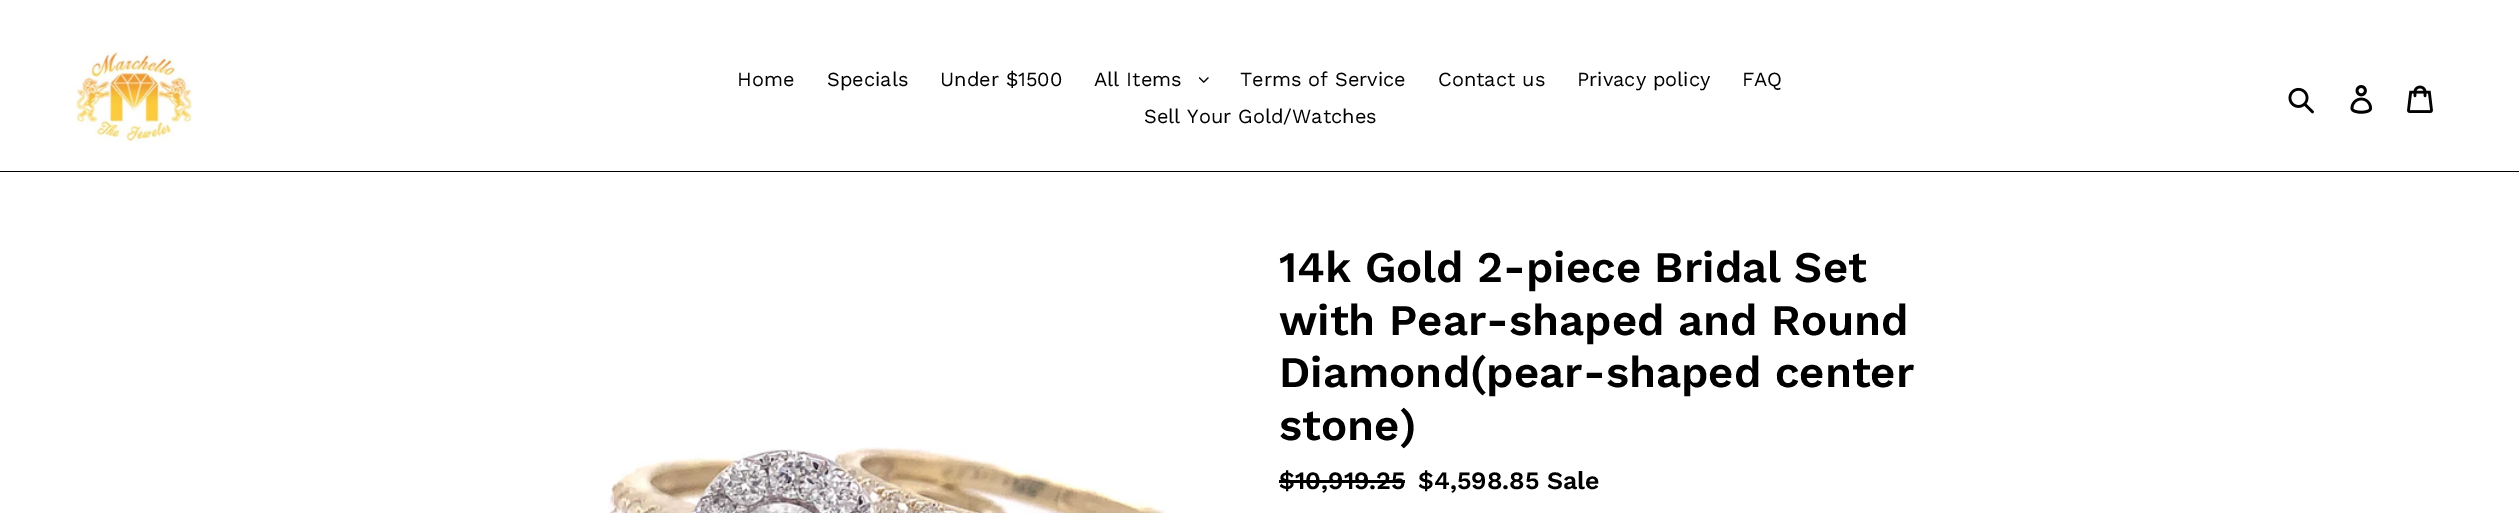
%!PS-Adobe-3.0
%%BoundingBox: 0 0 2519 513
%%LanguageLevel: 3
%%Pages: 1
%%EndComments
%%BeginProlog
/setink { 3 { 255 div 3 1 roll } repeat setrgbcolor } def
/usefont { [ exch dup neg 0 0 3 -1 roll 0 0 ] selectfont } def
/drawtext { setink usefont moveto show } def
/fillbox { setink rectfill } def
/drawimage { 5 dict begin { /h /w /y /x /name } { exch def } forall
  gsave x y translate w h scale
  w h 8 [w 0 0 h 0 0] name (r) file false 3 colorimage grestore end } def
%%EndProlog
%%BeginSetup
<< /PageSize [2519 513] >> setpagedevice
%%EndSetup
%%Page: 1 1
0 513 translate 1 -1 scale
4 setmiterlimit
0 0 2519 513 255 255 255 fillbox
0 171 2519 1 0 0 0 fillbox
(assets/img1.rgb) 75 51 118 92 drawimage
(Home) 737 86 /WorkSans-Regular 20 0 0 0 drawtext
(Specials) 827 86 /WorkSans-Regular 20 0 0 0 drawtext
(Under $1500) 940 86 /WorkSans-Regular 20 0 0 0 drawtext
(All Items) 1094 86 /WorkSans-Regular 20 0 0 0 drawtext
(assets/img2.rgb) 1199 77 10 6 drawimage
(Terms of Service) 1240 86 /WorkSans-Regular 20 0 0 0 drawtext
(Contact us) 1438 86 /WorkSans-Regular 20 0 0 0 drawtext
(Privacy policy) 1577 86 /WorkSans-Regular 20 0 0 0 drawtext
(FAQ) 1742 86 /WorkSans-Regular 20 0 0 0 drawtext
(Sell Your Gold/Watches) 1144 123 /WorkSans-Regular 20 0 0 0 drawtext
(assets/img3.rgb) 2288 87 26 27 drawimage
(assets/img4.rgb) 2350 85 23 29 drawimage
(assets/img5.rgb) 2407 85 26 28 drawimage
(assets/img6.rgb) 608 447 559 66 drawimage
(14k Gold 2-piece Bridal Set) 1279 282 /WorkSans-SemiBold 43.75 0 0 0 drawtext
(with Pear-shaped and Round) 1279 335 /WorkSans-SemiBold 43.75 0 0 0 drawtext
(Diamond\(pear-shaped center) 1279 387 /WorkSans-SemiBold 43.75 0 0 0 drawtext
(stone\)) 1279 440 /WorkSans-SemiBold 43.75 0 0 0 drawtext
($10,919.25) 1279 489 /WorkSans-SemiBold 25 0 0 0 drawtext
1279 480 126 3 0 0 0 fillbox
($4,598.85 Sale) 1418 489 /WorkSans-SemiBold 25 0 0 0 drawtext
showpage
%%EOF
